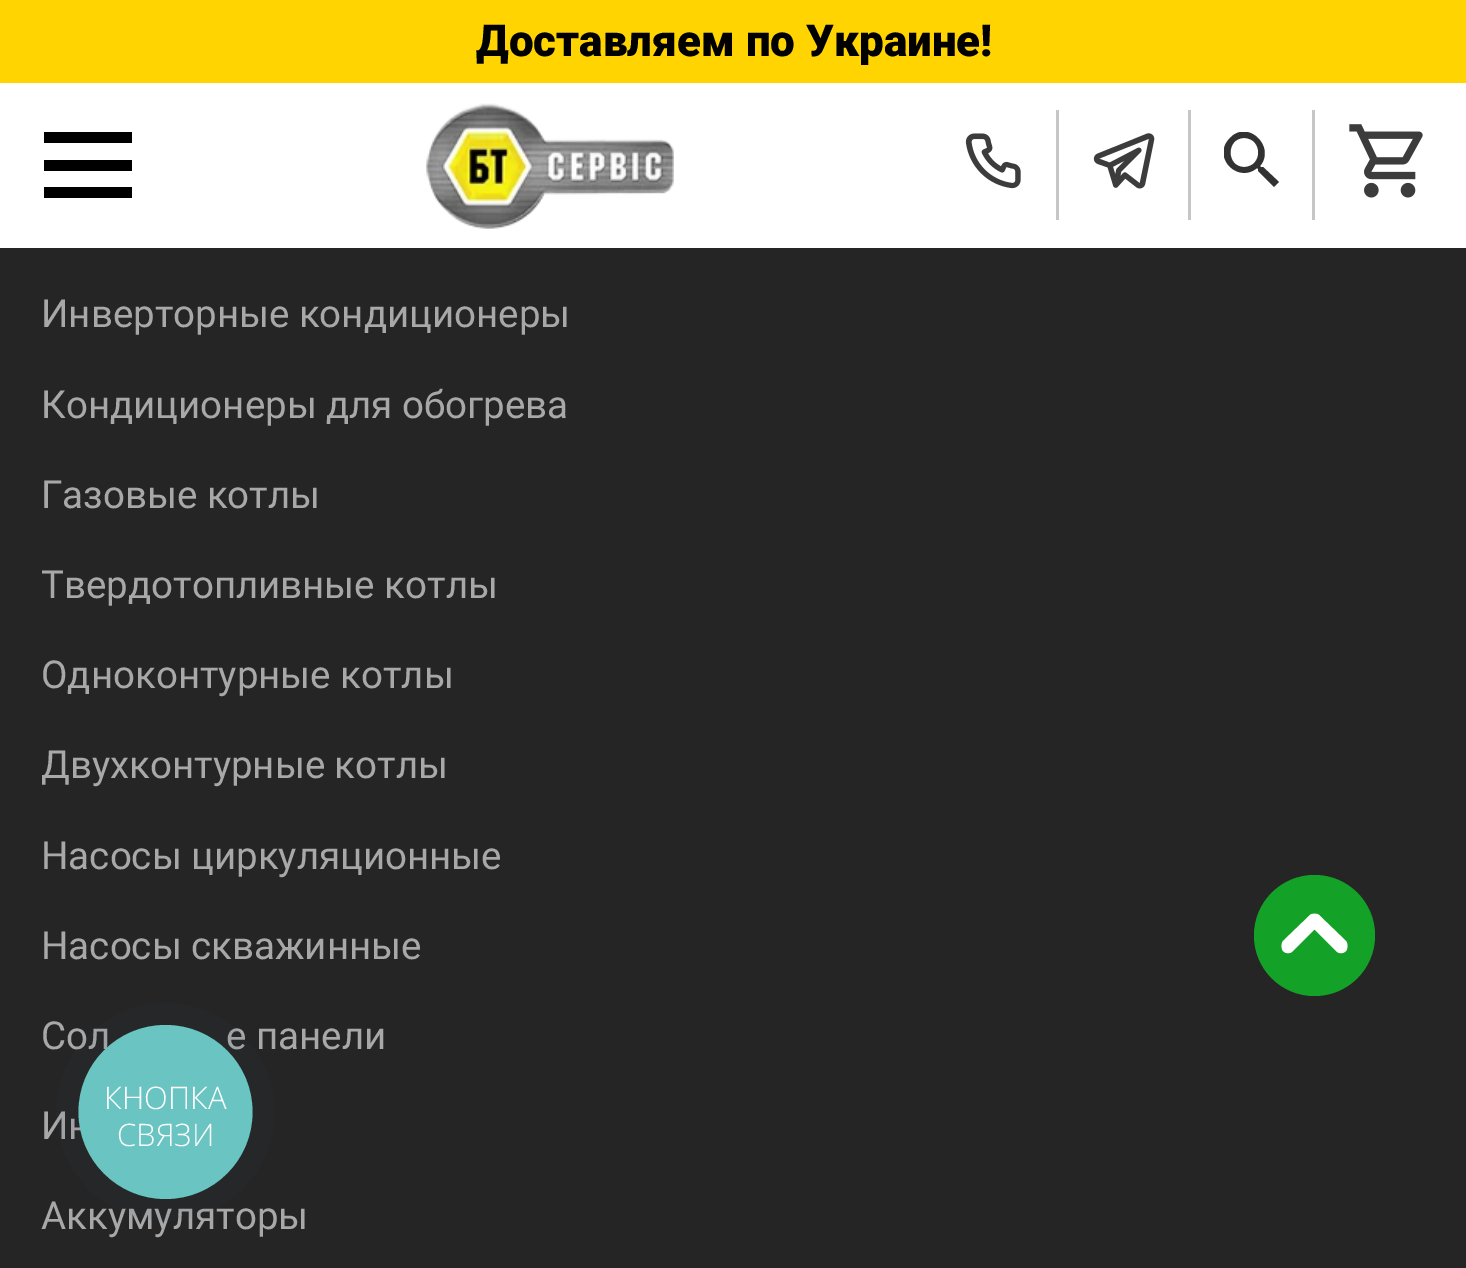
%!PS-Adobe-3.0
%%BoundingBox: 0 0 1466 1268
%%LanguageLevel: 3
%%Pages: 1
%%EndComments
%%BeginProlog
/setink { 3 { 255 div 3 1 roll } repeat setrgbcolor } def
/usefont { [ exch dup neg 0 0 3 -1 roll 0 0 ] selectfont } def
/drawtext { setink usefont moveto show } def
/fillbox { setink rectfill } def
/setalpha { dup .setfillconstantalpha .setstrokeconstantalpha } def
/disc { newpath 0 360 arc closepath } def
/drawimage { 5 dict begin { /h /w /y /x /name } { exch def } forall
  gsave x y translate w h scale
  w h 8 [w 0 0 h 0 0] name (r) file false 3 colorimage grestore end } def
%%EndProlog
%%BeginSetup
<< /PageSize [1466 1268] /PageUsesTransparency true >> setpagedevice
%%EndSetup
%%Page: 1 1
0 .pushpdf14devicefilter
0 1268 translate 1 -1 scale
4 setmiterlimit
0 0 1466 1268 37 37 37 fillbox
0 0 1466 83 255 212 0 fillbox
(Доставляем по Украине!) 476 56 /Roboto-Black 44 0 0 0 drawtext
0 83 1466 165 255 255 255 fillbox
44 132 88 11 0 0 0 fillbox
44 160 88 11 0 0 0 fillbox
44 187 88 11 0 0 0 fillbox
(assets/img1.rgb) 426 103 248 126 drawimage
1056 110 3 110 198 198 198 fillbox
(assets/img2.rgb) 965 133 56 56 drawimage
1188 110 3 110 198 198 198 fillbox
(assets/img3.rgb) 1093 133 62 56 drawimage
1312 110 3 110 198 198 198 fillbox
gsave
1224 132 55 55 rectclip
50 50 50 setink
1263 167 moveto 1261 167 lineto 1260 166 lineto 1276 147 1248 119 1230 138 curveto 1211 157 1238 184 1257 168 curveto 1258 169 lineto 1258 171 lineto 1274 187 lineto 1279 182 lineto closepath 1244 167 moveto 1226 167 1226 138 1244 138 curveto 1263 138 1263 167 1244 167 curveto closepath fill
grestore
(assets/img4.rgb) 1349 124 74 74 drawimage
(Инверторные кондиционеры) 41 327 /Roboto-Regular 38.5 168 168 168 drawtext
(Кондиционеры для обогрева) 41 418 /Roboto-Regular 38.5 168 168 168 drawtext
(Газовые котлы) 41 508 /Roboto-Regular 38.5 168 168 168 drawtext
(Твердотопливные котлы) 41 598 /Roboto-Regular 38.5 168 168 168 drawtext
(Одноконтурные котлы) 41 688 /Roboto-Regular 38.5 168 168 168 drawtext
(Двухконтурные котлы) 41 778 /Roboto-Regular 38.5 168 168 168 drawtext
(Насосы циркуляционные) 41 869 /Roboto-Regular 38.5 168 168 168 drawtext
(Насосы скважинные) 41 959 /Roboto-Regular 38.5 168 168 168 drawtext
(Сол) 41 1049 /Roboto-Regular 38.5 168 168 168 drawtext
(е панели) 226 1049 /Roboto-Regular 38.5 168 168 168 drawtext
(Ин) 41 1139 /Roboto-Regular 38.5 168 168 168 drawtext
(Аккумуляторы) 41 1229 /Roboto-Regular 38.5 168 168 168 drawtext
20 161 40 setink
1314.5 935.5 60.5 disc fill
255 255 255 setink
1320 916 moveto 1346 941 lineto 1348 944 1348 948 1346 951 curveto 1343 954 1339 954 1336 951 curveto 1311 926 lineto 1308 923 1308 919 1311 916 curveto 1313 913 1318 913 1320 916 curveto closepath fill
1283 941 moveto 1309 916 lineto 1311 913 1316 913 1318 916 curveto 1321 919 1321 923 1318 926 curveto 1293 951 lineto 1290 954 1286 954 1283 951 curveto 1281 948 1281 944 1283 941 curveto closepath fill
0.06 setalpha
42 64 93 setink
165.5 1112 109 disc fill
1 setalpha
106 196 193 setink
165.5 1112 87 disc fill
(КНОПКА) 104 1109 /OpenSans-Light 31 255 255 255 drawtext
(СВЯЗИ) 117 1146 /OpenSans-Light 31 255 255 255 drawtext
.poppdf14devicefilter showpage
%%EOF
